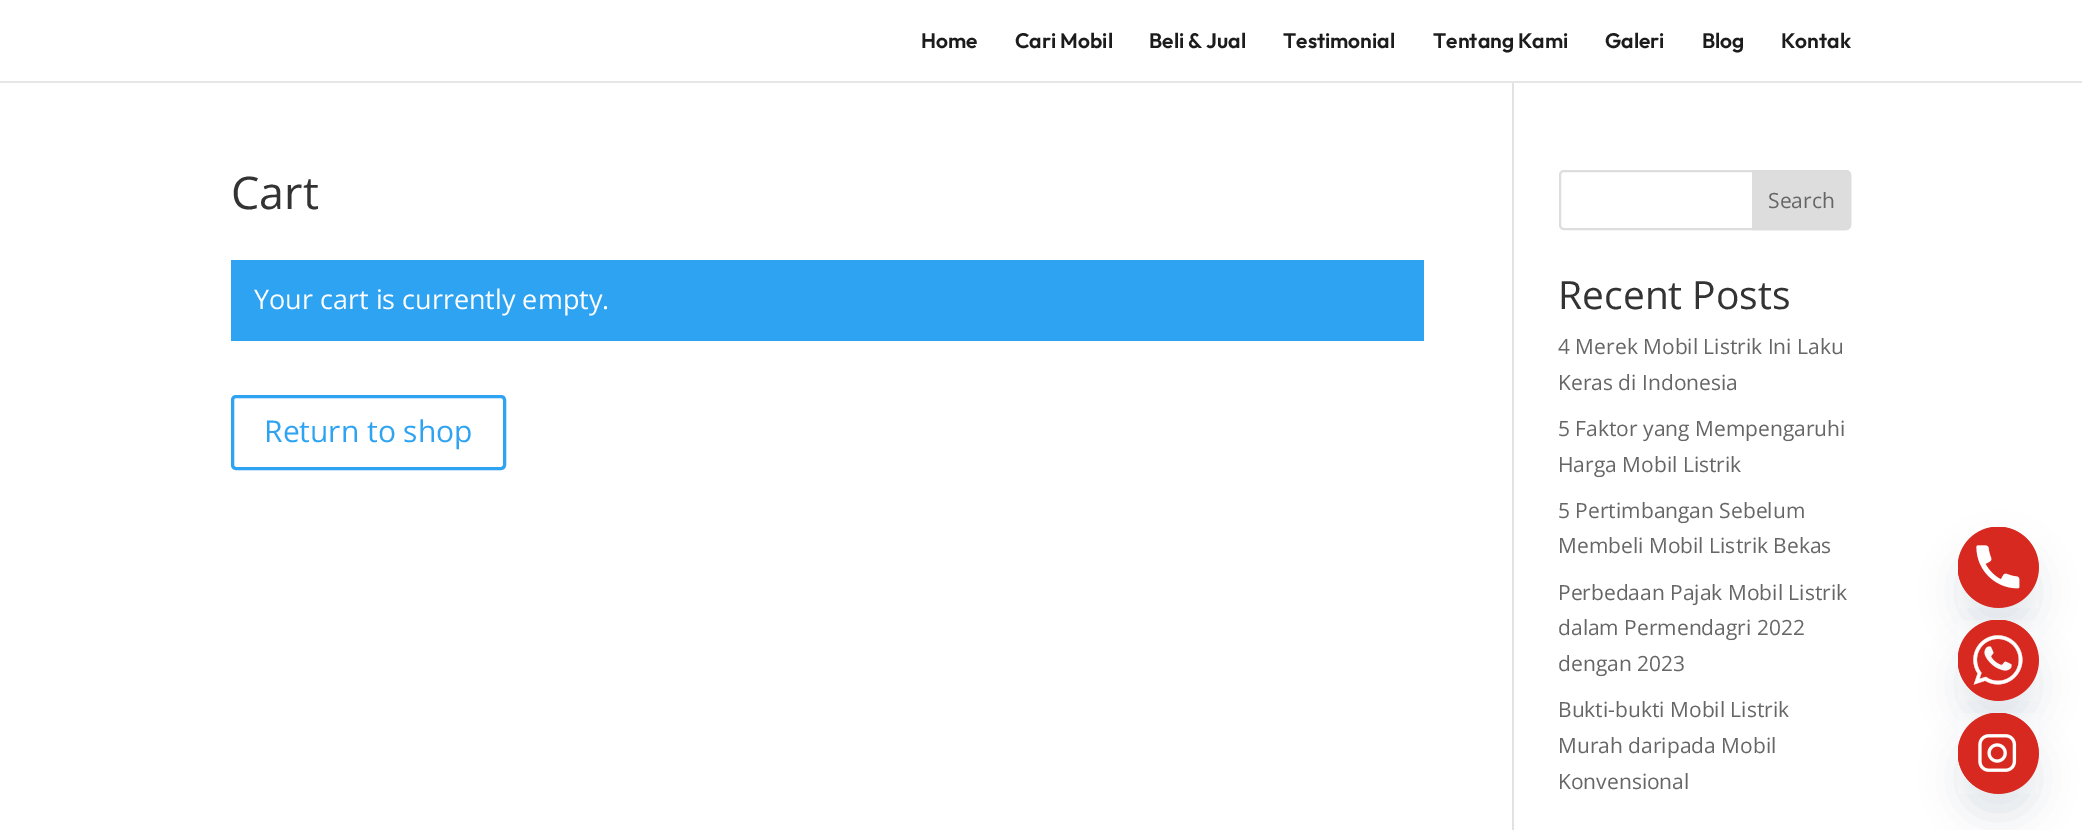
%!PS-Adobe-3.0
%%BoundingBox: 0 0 2082 830
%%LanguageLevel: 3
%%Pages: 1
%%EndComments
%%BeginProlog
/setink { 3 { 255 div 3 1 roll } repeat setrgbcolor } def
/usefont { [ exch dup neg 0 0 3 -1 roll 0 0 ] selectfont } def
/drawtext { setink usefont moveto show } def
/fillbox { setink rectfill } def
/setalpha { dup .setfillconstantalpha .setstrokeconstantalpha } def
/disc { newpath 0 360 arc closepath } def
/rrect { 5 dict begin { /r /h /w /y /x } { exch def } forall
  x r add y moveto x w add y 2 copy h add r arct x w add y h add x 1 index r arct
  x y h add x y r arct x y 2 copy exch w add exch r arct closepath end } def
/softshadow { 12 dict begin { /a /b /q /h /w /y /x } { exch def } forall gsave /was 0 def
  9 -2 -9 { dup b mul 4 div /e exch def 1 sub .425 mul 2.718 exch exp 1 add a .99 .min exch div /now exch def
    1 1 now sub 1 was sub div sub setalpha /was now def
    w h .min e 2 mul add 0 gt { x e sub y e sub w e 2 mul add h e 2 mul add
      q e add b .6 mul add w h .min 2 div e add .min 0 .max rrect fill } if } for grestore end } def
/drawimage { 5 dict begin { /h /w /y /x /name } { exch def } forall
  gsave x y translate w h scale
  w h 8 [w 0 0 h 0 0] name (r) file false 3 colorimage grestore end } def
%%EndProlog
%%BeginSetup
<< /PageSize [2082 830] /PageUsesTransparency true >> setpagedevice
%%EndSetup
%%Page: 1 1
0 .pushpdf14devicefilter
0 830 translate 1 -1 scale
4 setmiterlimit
0 0 2082 830 255 255 255 fillbox
0 81 2082 2 230 230 230 fillbox
(Home) 921 48 /Outfit-Thin 21 28 28 28 drawtext
(Cari Mobil) 1015 48 /Outfit-Thin 21 28 28 28 drawtext
(Beli & Jual) 1149 48 /Outfit-Thin 21 28 28 28 drawtext
(Testimonial) 1283 48 /Outfit-Thin 21 28 28 28 drawtext
(Tentang Kami) 1433 48 /Outfit-Thin 21 28 28 28 drawtext
(Galeri) 1605 48 /Outfit-Thin 21 28 28 28 drawtext
(Blog) 1702 48 /Outfit-Thin 21 28 28 28 drawtext
(Kontak) 1781 48 /Outfit-Thin 21 28 28 28 drawtext
1512 83 2 747 226 226 226 fillbox
(Cart) 231 209 /OpenSans-Regular 45 51 51 51 drawtext
231 260 1193 81 46 163 242 fillbox
(Your cart is currently empty.) 254 309 /OpenSans-Regular 27 255 255 255 drawtext
46 163 242 setink
3 setlinewidth
232.5 396.5 272 72 3.5 rrect stroke
(Return to shop) 264 442 /OpenSans-Regular 30 46 163 242 drawtext
221 221 221 setink
2 setlinewidth
1560 171 290 58 4 rrect stroke
1753 171 moveto 1846 171 lineto 1848 171 1850 173 1850 175 curveto 1850 225 lineto 1850 227 1848 229 1846 229 curveto 1753 229 lineto closepath gsave fill grestore
stroke
(Search) 1768 208 /OpenSans-Regular 21 102 102 102 drawtext
(Recent Posts) 1558 309 /OpenSans-Regular 39 51 51 51 drawtext
(4 Merek Mobil Listrik Ini Laku) 1558 354 /OpenSans-Regular 21 102 102 102 drawtext
(Keras di Indonesia) 1558 390 /OpenSans-Regular 21 102 102 102 drawtext
(5 Faktor yang Mempengaruhi) 1558 436 /OpenSans-Regular 21 102 102 102 drawtext
(Harga Mobil Listrik) 1558 472 /OpenSans-Regular 21 102 102 102 drawtext
(5 Pertimbangan Sebelum) 1558 518 /OpenSans-Regular 21 102 102 102 drawtext
(Membeli Mobil Listrik Bekas) 1558 553 /OpenSans-Regular 21 102 102 102 drawtext
(Perbedaan Pajak Mobil Listrik) 1558 600 /OpenSans-Regular 21 102 102 102 drawtext
(dalam Permendagri 2022) 1558 635 /OpenSans-Regular 21 102 102 102 drawtext
(dengan 2023) 1558 671 /OpenSans-Regular 21 102 102 102 drawtext
(Bukti-bukti Mobil Listrik) 1558 717 /OpenSans-Regular 21 102 102 102 drawtext
(Murah daripada Mobil) 1558 753 /OpenSans-Regular 21 102 102 102 drawtext
(Konvensional) 1558 789 /OpenSans-Regular 21 102 102 102 drawtext
73 104 126 setink
1958 551 81 81 40.5 18 0.16 softshadow
216 41 33 setink
1998.5 567.5 40.5 disc fill
(assets/img1.rgb) 1958 527 81 81 drawimage
73 104 126 setink
1958 644 81 81 40.5 18 0.16 softshadow
216 41 33 setink
1998.5 660.5 40.5 disc fill
(assets/img2.rgb) 1958 620 81 81 drawimage
73 104 126 setink
1958 737 81 81 40.5 18 0.16 softshadow
216 41 33 setink
1998.5 753.5 40.5 disc fill
(assets/img3.rgb) 1958 713 81 81 drawimage
.poppdf14devicefilter showpage
%%EOF
